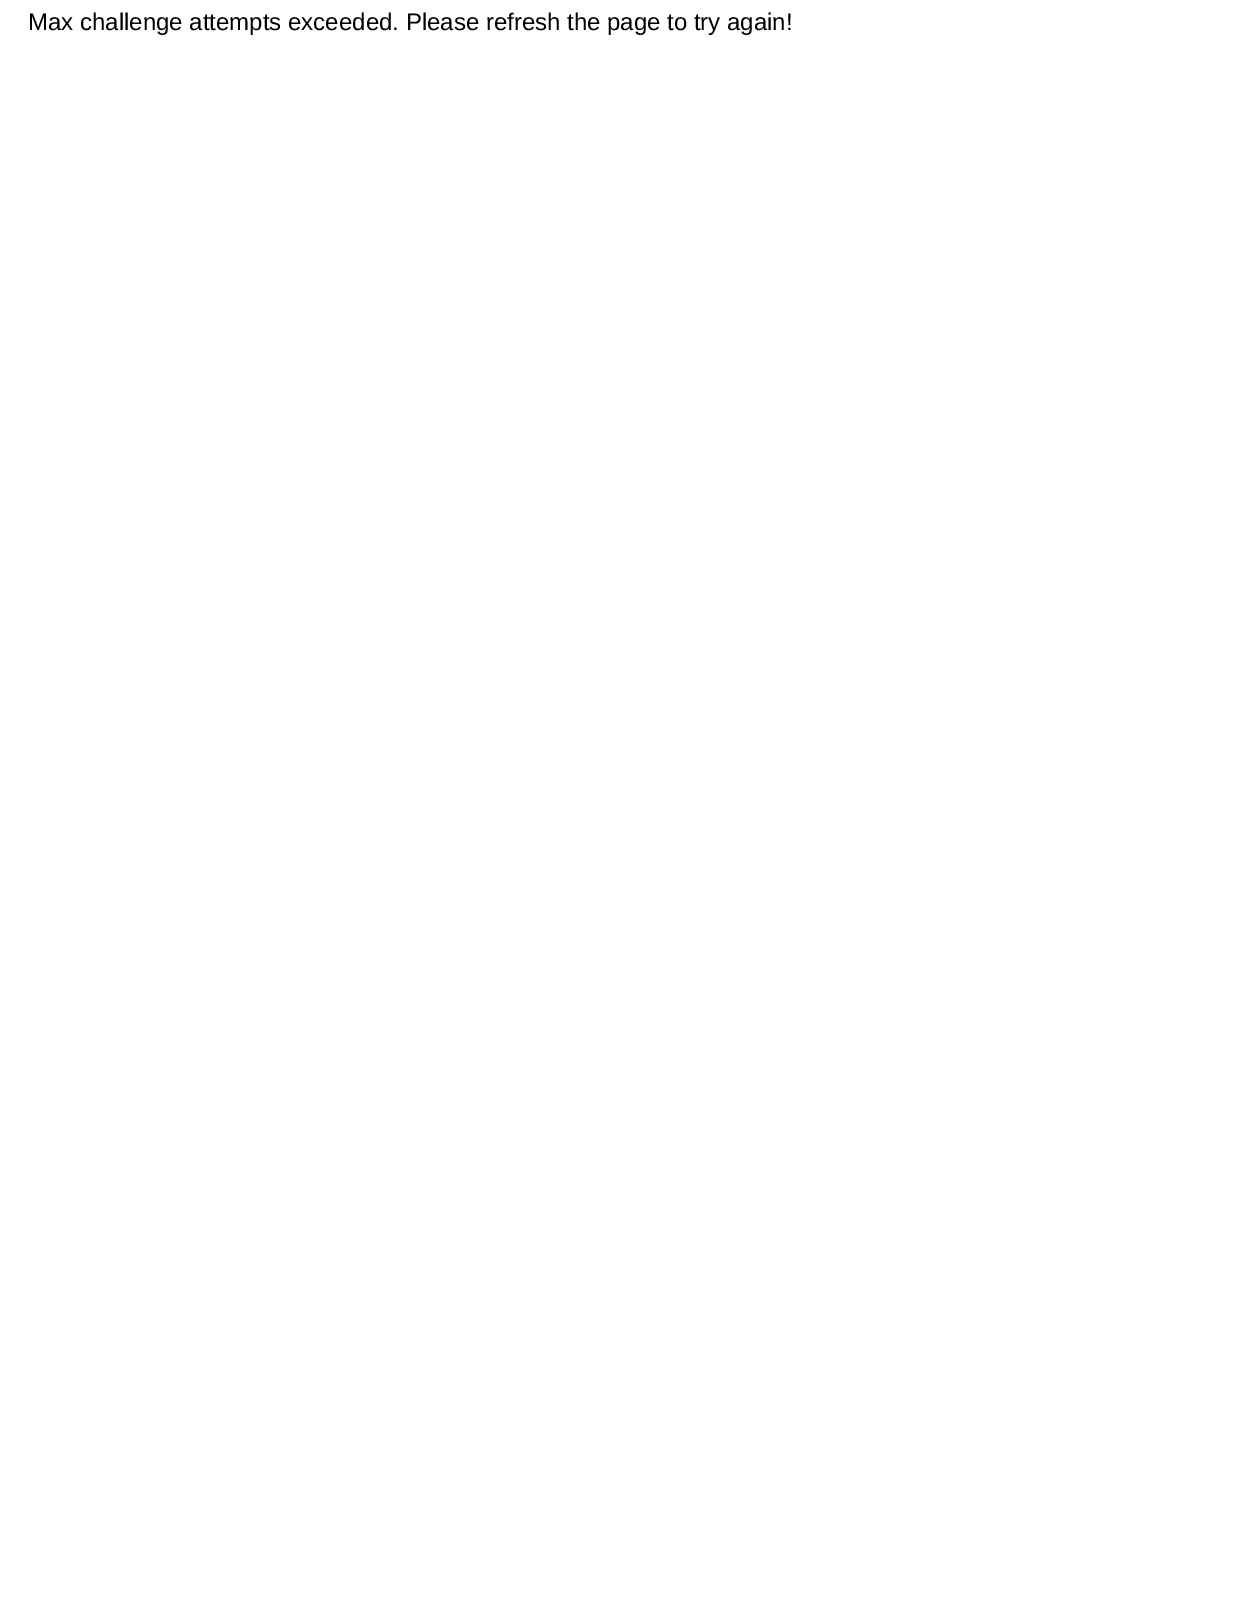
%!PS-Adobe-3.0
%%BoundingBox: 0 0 1243 1617
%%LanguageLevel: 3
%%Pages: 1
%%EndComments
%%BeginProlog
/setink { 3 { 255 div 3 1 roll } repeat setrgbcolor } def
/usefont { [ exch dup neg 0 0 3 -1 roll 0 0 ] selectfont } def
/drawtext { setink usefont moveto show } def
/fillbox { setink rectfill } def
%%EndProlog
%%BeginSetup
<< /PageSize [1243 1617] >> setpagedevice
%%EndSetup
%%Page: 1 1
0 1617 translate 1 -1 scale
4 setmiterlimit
0 0 1243 1617 255 255 255 fillbox
(Max challenge attempts exceeded. Please refresh the page to try again!) 28 30 /LiberationSans-Regular 24 0 0 0 drawtext
showpage
%%EOF
